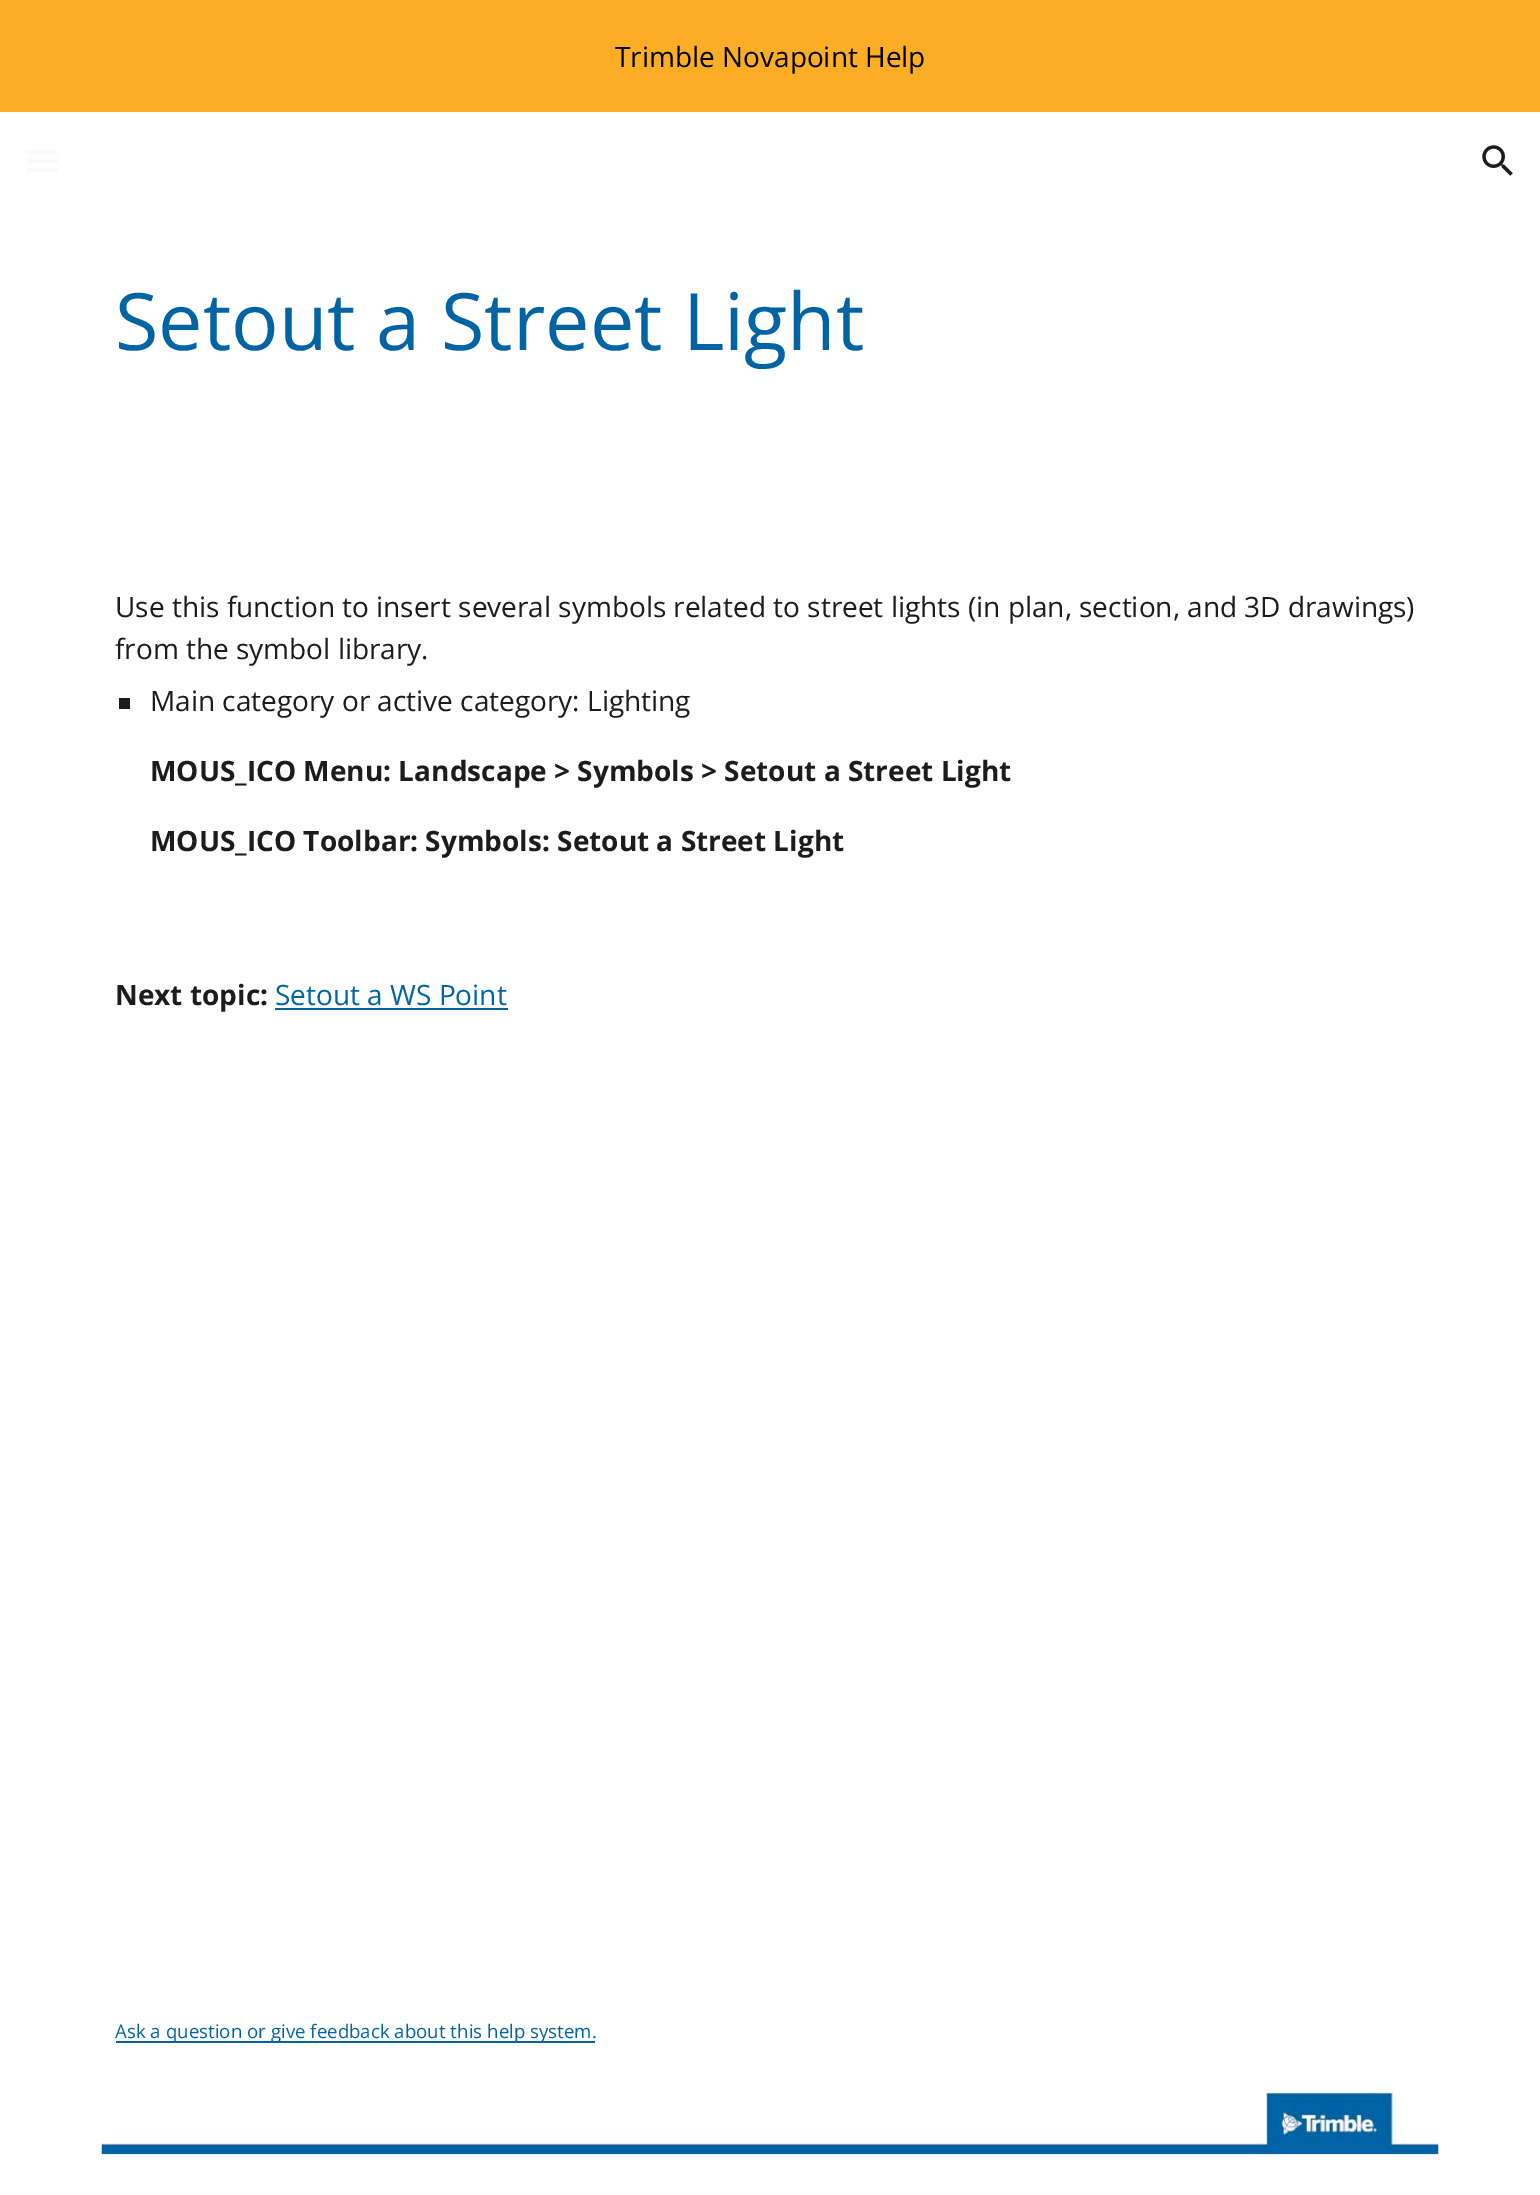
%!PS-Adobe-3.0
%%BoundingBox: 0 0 1540 2195
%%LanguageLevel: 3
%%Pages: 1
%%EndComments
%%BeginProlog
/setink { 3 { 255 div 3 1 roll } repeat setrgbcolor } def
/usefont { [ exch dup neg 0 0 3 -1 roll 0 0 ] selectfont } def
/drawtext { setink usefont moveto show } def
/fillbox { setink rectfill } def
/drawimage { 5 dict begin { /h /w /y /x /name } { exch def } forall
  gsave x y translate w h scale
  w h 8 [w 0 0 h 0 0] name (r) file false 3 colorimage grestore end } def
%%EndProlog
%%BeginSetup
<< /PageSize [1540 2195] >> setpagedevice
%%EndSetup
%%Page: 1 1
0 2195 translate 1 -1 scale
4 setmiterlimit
0 0 1540 2195 255 255 255 fillbox
0 0 1540 112 251 173 38 fillbox
(Trimble Novapoint Help) 615 67 /OpenSans-Regular 28 0 0 0 drawtext
26 150 32 4 250 250 250 fillbox
26 159 32 4 250 250 250 fillbox
26 168 32 4 250 250 250 fillbox
(assets/img1.rgb) 1482 145 31 31 drawimage
(Setout a Street Light) 115 350 /OpenSans-Regular 79.25 0 99 163 drawtext
(Use this function to insert several symbols related to street lights \(in plan, section, and 3D drawings\)) 115 617 /OpenSans-Regular 28 28 28 28 drawtext
(from the symbol library.) 115 659 /OpenSans-Regular 28 28 28 28 drawtext
119 698 11 11 28 28 28 fillbox
(Main category or active category: Lighting) 150 711 /OpenSans-Regular 28 28 28 28 drawtext
(MOUS_ICO Menu: Landscape > Symbols > Setout a Street Light) 150 781 /OpenSans-Bold 28 28 28 28 drawtext
(MOUS_ICO Toolbar: Symbols: Setout a Street Light) 150 851 /OpenSans-Bold 28 28 28 28 drawtext
(Next topic:) 115 1005 /OpenSans-Bold 28 28 28 28 drawtext
(Setout a WS Point) 275 1005 /OpenSans-Regular 28 0 99 163 drawtext
275 1008 233 2 0 99 163 fillbox
116 2041 479 2 0 99 163 fillbox
(Ask a question or give feedback about this help system.) 115 2038 /OpenSans-Regular 18.7 0 99 163 drawtext
(assets/img2.rgb) 101 2089 1338 66 drawimage
showpage
%%EOF
